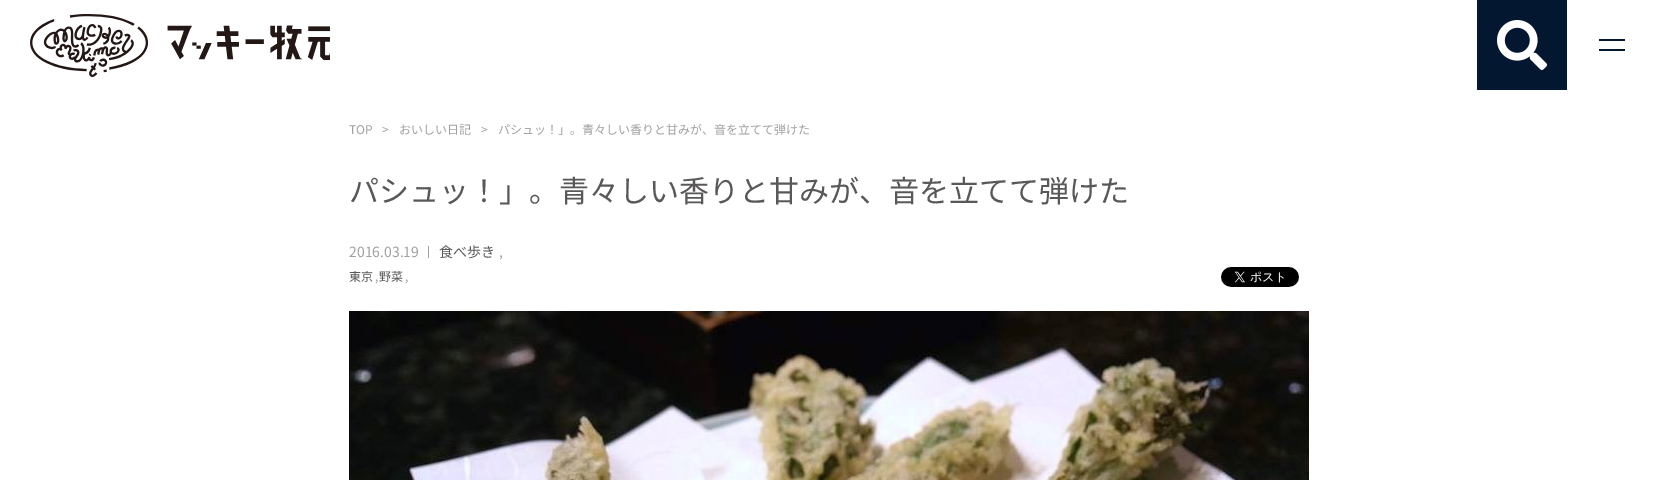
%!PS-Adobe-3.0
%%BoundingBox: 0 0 1657 480
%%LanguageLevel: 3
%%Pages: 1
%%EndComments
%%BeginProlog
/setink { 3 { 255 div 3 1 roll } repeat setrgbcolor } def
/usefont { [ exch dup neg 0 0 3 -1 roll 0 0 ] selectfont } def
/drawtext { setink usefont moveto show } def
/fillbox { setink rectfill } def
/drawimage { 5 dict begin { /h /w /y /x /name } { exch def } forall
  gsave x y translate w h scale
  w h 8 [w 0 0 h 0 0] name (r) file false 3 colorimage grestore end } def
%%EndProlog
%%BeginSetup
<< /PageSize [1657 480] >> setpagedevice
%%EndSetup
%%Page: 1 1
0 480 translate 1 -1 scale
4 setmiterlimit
0 0 1657 480 255 255 255 fillbox
(assets/img1.rgb) 30 14 300 63 drawimage
1477 0 90 90 3 23 49 fillbox
(assets/img2.rgb) 1497 20 50 50 drawimage
1599 39 26 2 3 23 49 fillbox
1599 49 26 2 3 23 49 fillbox
(TOP) 349 134 /NotoSansJP-Regular 12 159 160 160 drawtext
(>) 382 134 /NotoSansJP-Regular 12 159 160 160 drawtext
(おいしい日記) 399 134 /NotoSansJP-Regular 12 159 160 160 drawtext
(>) 481 134 /NotoSansJP-Regular 12 159 160 160 drawtext
(パシュッ！」。青々しい香りと甘みが、音を立てて弾けた) 498 134 /NotoSansJP-Regular 12 159 160 160 drawtext
(パシュッ！」。青々しい香りと甘みが、音を立てて弾けた) 349 202 /NotoSansJP-Regular 30 89 87 87 drawtext
(2016.03.19) 349 257 /NotoSansJP-Regular 14 159 160 160 drawtext
428 246 1 12 159 160 160 fillbox
(食べ歩き) 439 257 /NotoSansJP-Regular 14 89 87 87 drawtext
(,) 499 257 /NotoSansJP-Regular 14 159 160 160 drawtext
(東京) 349 281 /NotoSansJP-Regular 12 89 87 87 drawtext
(,) 375 281 /NotoSansJP-Regular 12 159 160 160 drawtext
(野菜) 379 281 /NotoSansJP-Regular 12 89 87 87 drawtext
(,) 405 281 /NotoSansJP-Regular 12 159 160 160 drawtext
(assets/img3.rgb) 1221 267 78 20 drawimage
(assets/img4.rgb) 349 311 960 169 drawimage
showpage
%%EOF
